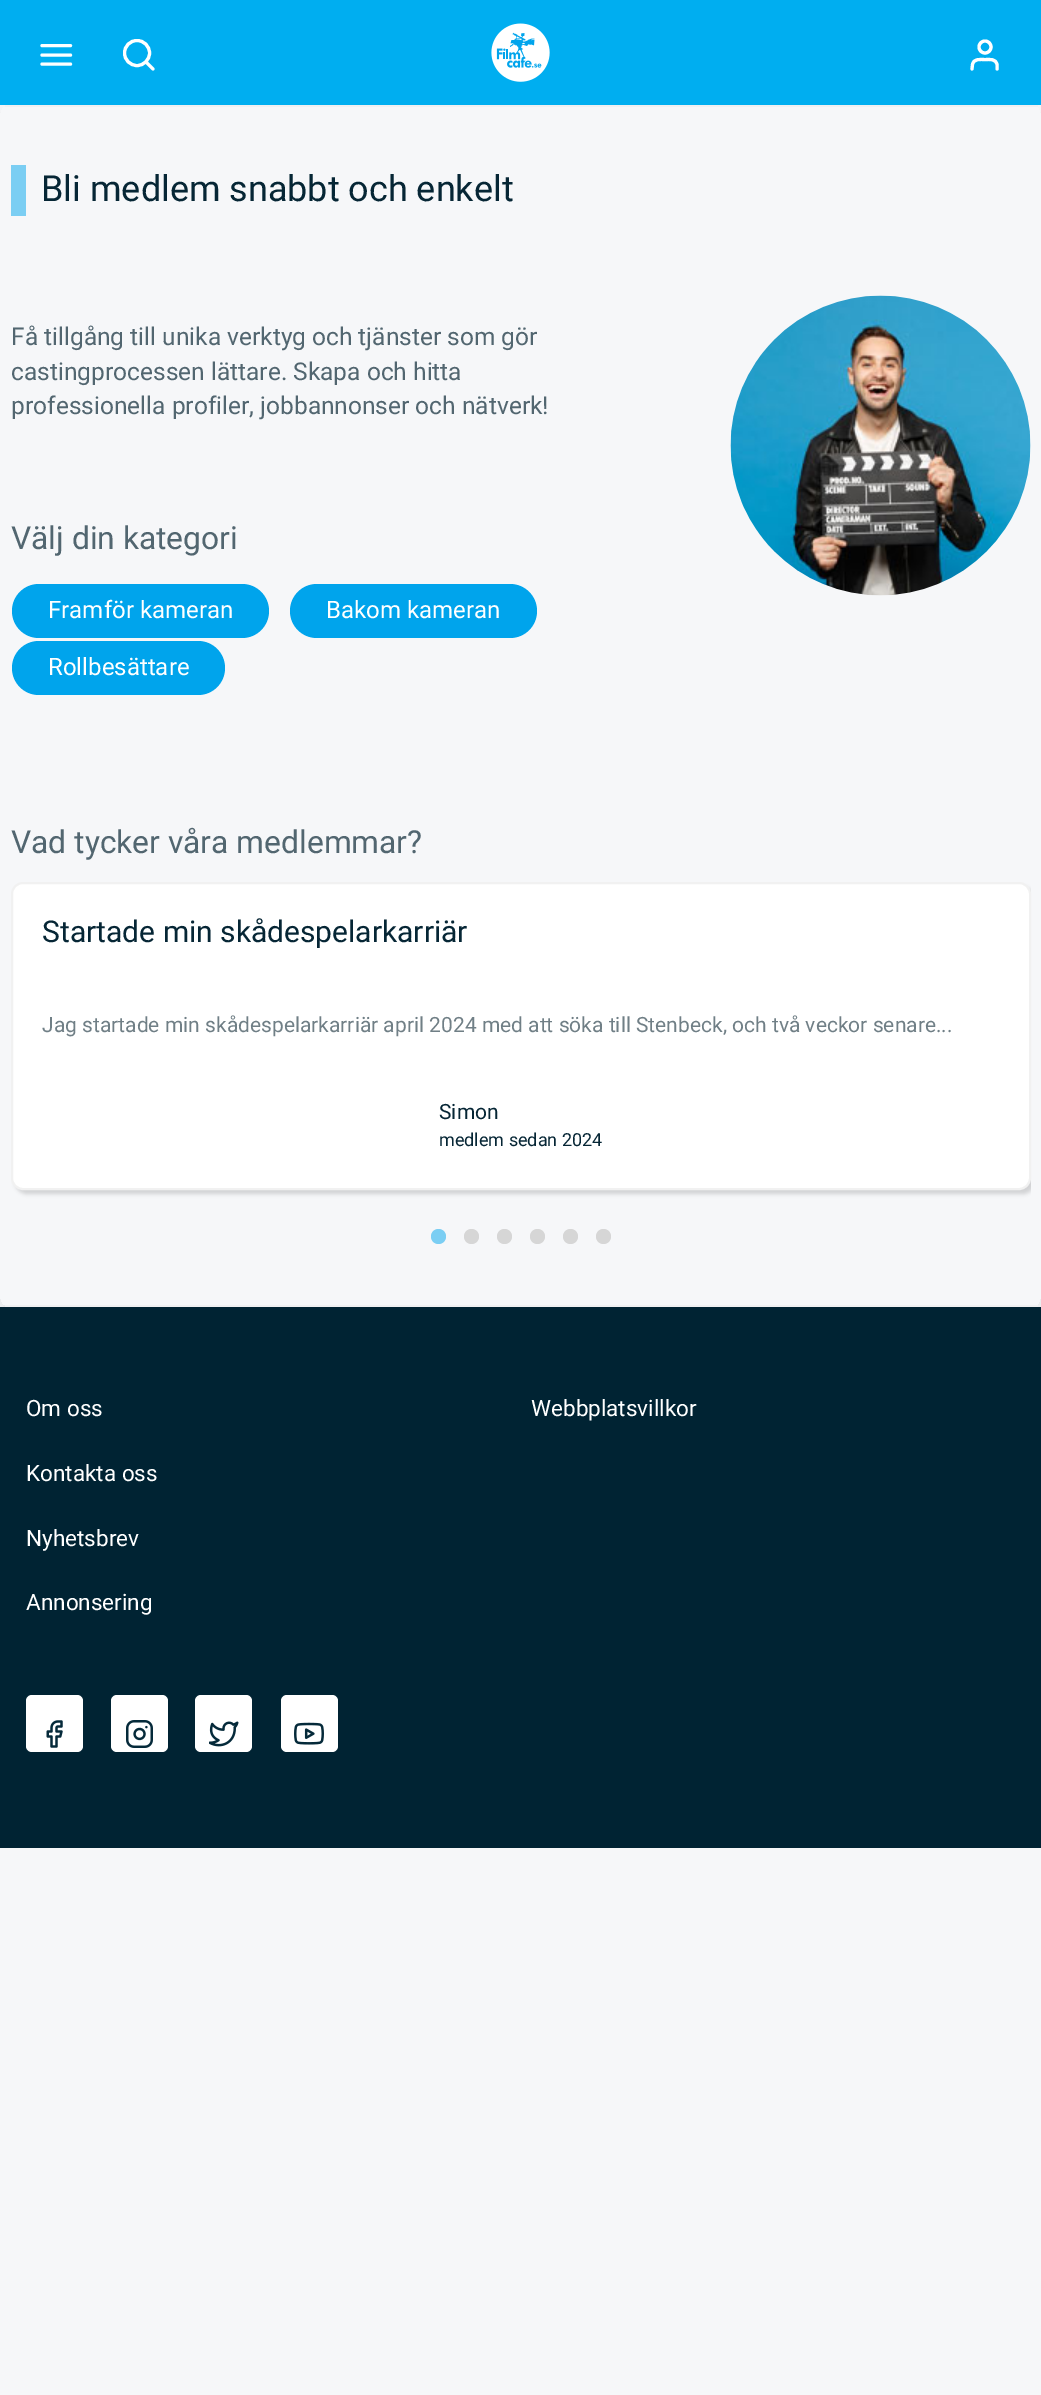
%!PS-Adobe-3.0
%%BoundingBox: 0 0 1041 2395
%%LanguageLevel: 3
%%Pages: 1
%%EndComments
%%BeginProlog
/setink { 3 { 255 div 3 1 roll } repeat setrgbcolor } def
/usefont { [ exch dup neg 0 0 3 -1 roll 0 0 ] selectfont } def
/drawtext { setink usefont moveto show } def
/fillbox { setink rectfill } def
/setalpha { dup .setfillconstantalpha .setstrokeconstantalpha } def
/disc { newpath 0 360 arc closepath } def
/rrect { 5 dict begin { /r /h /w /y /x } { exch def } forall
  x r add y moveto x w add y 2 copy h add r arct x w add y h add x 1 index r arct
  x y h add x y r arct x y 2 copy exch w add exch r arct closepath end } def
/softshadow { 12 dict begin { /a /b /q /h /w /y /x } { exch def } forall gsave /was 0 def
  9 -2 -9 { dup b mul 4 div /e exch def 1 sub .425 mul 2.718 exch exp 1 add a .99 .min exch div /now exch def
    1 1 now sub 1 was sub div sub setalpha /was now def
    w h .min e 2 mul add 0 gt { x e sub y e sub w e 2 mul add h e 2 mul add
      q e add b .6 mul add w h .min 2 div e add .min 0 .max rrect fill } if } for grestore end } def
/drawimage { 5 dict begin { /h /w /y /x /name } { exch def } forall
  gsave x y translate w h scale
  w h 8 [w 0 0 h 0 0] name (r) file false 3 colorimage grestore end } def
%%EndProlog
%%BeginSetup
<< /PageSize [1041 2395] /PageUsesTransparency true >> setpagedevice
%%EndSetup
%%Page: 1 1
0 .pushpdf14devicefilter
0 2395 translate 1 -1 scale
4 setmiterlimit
0 0 1041 2395 246 247 249 fillbox
gsave
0 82 moveto 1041 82 lineto 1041 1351 lineto 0 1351 lineto closepath 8 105 moveto 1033 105 lineto 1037.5 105 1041 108.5 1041 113 curveto 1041 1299 lineto 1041 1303.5 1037.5 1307 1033 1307 curveto 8 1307 lineto 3.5 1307 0 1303.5 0 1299 curveto 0 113 lineto 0 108.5 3.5 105 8 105 curveto closepath eoclip newpath
0 0 0 setink
0 116 1041 1201 8 11 0.07 softshadow
grestore
0 0 1041 105 0 174 240 fillbox
255 255 255 setink
3.1 setlinewidth
1 setlinecap
1 setlinejoin
42 55 moveto 70.5 55 lineto 42 45.5 moveto 70.5 45.5 lineto 42 64 moveto 70.5 64 lineto stroke
0 setlinecap
0 setlinejoin
137 53 12.5 disc stroke
1 setlinecap
1 setlinejoin
153 69 moveto 146 62 lineto stroke
(assets/img1.rgb) 491 23 59 59 drawimage
997 69 moveto 997 64.5 lineto 996 58.5 989.5 59.5 985 59.5 curveto 980 59.5 973.5 58.5 972.5 64.5 curveto 972 69 lineto stroke
0 setlinecap
0 setlinejoin
985 47 6 disc stroke
5 105 1033 2 240 240 242 fillbox
5 1305 1033 2 240 240 242 fillbox
11 165 15 51 123 206 243 fillbox
(Bli medlem snabbt och enkelt) 41 201 /Roboto-Regular 36 6 38 53 drawtext
(Få tillgång till unika verktyg och tjänster som gör) 11 345 /Roboto-Regular 24.5 82 102 112 drawtext
(castingprocessen lättare. Skapa och hitta) 11 380 /Roboto-Regular 24.5 82 102 112 drawtext
(professionella profiler, jobbannonser och nätverk!) 11 414 /Roboto-Regular 24.5 82 102 112 drawtext
(Välj din kategori) 11 549 /Roboto-Regular 31.75 82 102 112 drawtext
0 164 236 setink
12 584 257 54 27 rrect fill
(Framför kameran) 48 618 /Roboto-Regular 24 255 255 255 drawtext
0 164 236 setink
290 584 247 54 27 rrect fill
(Bakom kameran) 326 618 /Roboto-Regular 24 255 255 255 drawtext
0 164 236 setink
12 641 213 54 27 rrect fill
(Rollbesättare) 48 675 /Roboto-Regular 24 255 255 255 drawtext
(assets/img2.rgb) 730 295 301 301 drawimage
(Vad tycker våra medlemmar?) 11 853 /Roboto-Regular 31.75 82 102 112 drawtext
gsave
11 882 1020 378 rectclip
0 0 0 setink
15 887 1020 307 12 2 0.15 softshadow
grestore
255 255 255 setink
12 883 1018 306 11 rrect gsave fill grestore
241 241 241 setink
2 setlinewidth
stroke
(Startade min skådespelarkarriär) 42 942 /Roboto-Regular 30 6 38 53 drawtext
(Jag startade min skådespelarkarriär april 2024 med att söka till Stenbeck, och två veckor senare...) 42 1032 /Roboto-Regular 21 112 127 134 drawtext
(Simon) 439 1119 /Roboto-Regular 21 6 38 53 drawtext
(medlem sedan 2024) 439 1146 /Roboto-Regular 18 6 38 53 drawtext
123 206 243 setink
438.5 1236.5 7.5 disc fill
214 214 214 setink
471.5 1236.5 7.5 disc fill
504.5 1236.5 7.5 disc fill
537.5 1236.5 7.5 disc fill
570.5 1236.5 7.5 disc fill
603.5 1236.5 7.5 disc fill
0 1307 1041 541 0 35 51 fillbox
(Om oss) 26 1416 /Roboto-Regular 22.5 255 255 255 drawtext
(Kontakta oss) 26 1481 /Roboto-Regular 22.5 255 255 255 drawtext
(Nyhetsbrev) 26 1546 /Roboto-Regular 22.5 255 255 255 drawtext
(Annonsering) 26 1610 /Roboto-Regular 22.5 255 255 255 drawtext
(Webbplatsvillkor) 531 1416 /Roboto-Regular 22.5 255 255 255 drawtext
26 1695 57 57 6 rrect fill
(assets/img3.rgb) 46 1720 17 28 drawimage
111 1695 57 57 6 rrect fill
(assets/img4.rgb) 126 1720 27 28 drawimage
195 1695 57 57 6 rrect fill
(assets/img5.rgb) 209 1721 30 26 drawimage
281 1695 57 57 6 rrect fill
(assets/img6.rgb) 294 1722 30 23 drawimage
.poppdf14devicefilter showpage
%%EOF
